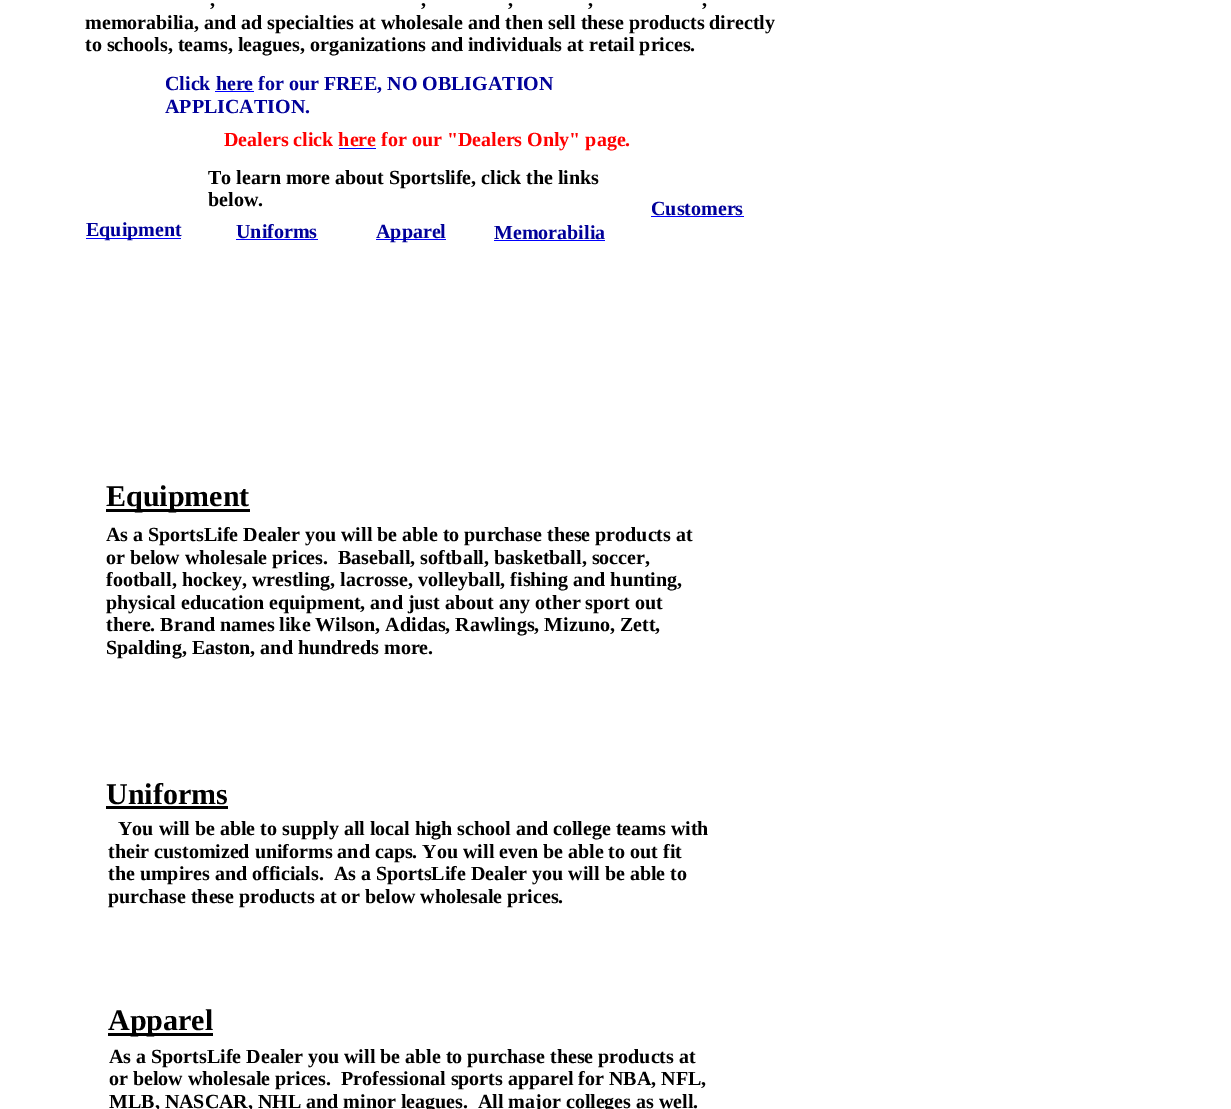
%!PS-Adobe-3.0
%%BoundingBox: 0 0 1231 1109
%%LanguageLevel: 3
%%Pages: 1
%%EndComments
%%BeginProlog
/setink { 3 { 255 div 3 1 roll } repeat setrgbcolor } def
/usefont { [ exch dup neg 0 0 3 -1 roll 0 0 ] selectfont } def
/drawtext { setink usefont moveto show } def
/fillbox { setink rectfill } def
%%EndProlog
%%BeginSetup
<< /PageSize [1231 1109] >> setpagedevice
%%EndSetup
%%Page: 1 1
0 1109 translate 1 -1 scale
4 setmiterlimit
0 0 1231 1109 255 255 255 fillbox
(,) 210 6 /LiberationSerif-Bold 20 0 0 0 drawtext
(,) 421 6 /LiberationSerif-Bold 20 0 0 0 drawtext
(,) 508 6 /LiberationSerif-Bold 20 0 0 0 drawtext
(,) 588 6 /LiberationSerif-Bold 20 0 0 0 drawtext
(,) 702 6 /LiberationSerif-Bold 20 0 0 0 drawtext
(memorabilia, and ad specialties at wholesale and then sell these products directly) 85 29 /LiberationSerif-Bold 20 0 0 0 drawtext
(to schools, teams, leagues, organizations and individuals at retail prices.) 85 51 /LiberationSerif-Bold 20 0 0 0 drawtext
(Click here for our FREE, NO OBLIGATION) 165 90 /LiberationSerif-Bold 20 0 0 153 drawtext
215 91 39 1 0 0 255 fillbox
(APPLICATION.) 165 113 /LiberationSerif-Bold 20 0 0 153 drawtext
(Dealers click here for our "Dealers Only" page.) 224 146 /LiberationSerif-Bold 20 255 0 0 drawtext
339 148 37 1 0 0 255 fillbox
(To learn more about Sportslife, click the links) 208 184 /LiberationSerif-Bold 20 0 0 0 drawtext
(below.) 208 206 /LiberationSerif-Bold 20 0 0 0 drawtext
86 238 95 1 0 0 255 fillbox
(Equipment) 86 236 /LiberationSerif-Bold 20 0 0 153 drawtext
(Uniforms) 236 238 /LiberationSerif-Bold 20 0 0 153 drawtext
236 239 82 1 0 0 255 fillbox
106 509 144 3 0 0 0 fillbox
(Equipment) 106 506 /LiberationSerif-Bold 30 0 0 0 drawtext
376 239 70 1 0 0 255 fillbox
(Apparel) 376 238 /LiberationSerif-Bold 20 0 0 153 drawtext
(Memorabilia) 494 239 /LiberationSerif-Bold 20 0 0 153 drawtext
494 240 111 1 0 0 255 fillbox
(Customers) 651 215 /LiberationSerif-Bold 20 0 0 153 drawtext
651 216 93 1 0 0 255 fillbox
(As a SportsLife Dealer you will be able to purchase these products at) 106 541 /LiberationSerif-Bold 20 0 0 0 drawtext
(or below wholesale prices.  Baseball, softball, basketball, soccer,) 106 564 /LiberationSerif-Bold 20 0 0 0 drawtext
(football, hockey, wrestling, lacrosse, volleyball, fishing and hunting,) 106 586 /LiberationSerif-Bold 20 0 0 0 drawtext
(physical education equipment, and just about any other sport out) 106 609 /LiberationSerif-Bold 20 0 0 0 drawtext
(there. Brand names like Wilson, Adidas, Rawlings, Mizuno, Zett,) 106 631 /LiberationSerif-Bold 20 0 0 0 drawtext
(Spalding, Easton, and hundreds more.) 106 654 /LiberationSerif-Bold 20 0 0 0 drawtext
(Uniforms) 106 804 /LiberationSerif-Bold 30 0 0 0 drawtext
106 806 122 3 0 0 0 fillbox
(You will be able to supply all local high school and college teams with) 118 835 /LiberationSerif-Bold 20 0 0 0 drawtext
(their customized uniforms and caps. You will even be able to out fit) 108 858 /LiberationSerif-Bold 20 0 0 0 drawtext
(the umpires and officials.  As a SportsLife Dealer you will be able to) 108 880 /LiberationSerif-Bold 20 0 0 0 drawtext
(purchase these products at or below wholesale prices.) 108 903 /LiberationSerif-Bold 20 0 0 0 drawtext
108 1033 105 3 0 0 0 fillbox
(Apparel) 108 1030 /LiberationSerif-Bold 30 0 0 0 drawtext
(As a SportsLife Dealer you will be able to purchase these products at) 109 1063 /LiberationSerif-Bold 20 0 0 0 drawtext
(or below wholesale prices.  Professional sports apparel for NBA, NFL,) 109 1085 /LiberationSerif-Bold 20 0 0 0 drawtext
(MLB, NASCAR, NHL and minor leagues.  All major colleges as well.) 109 1108 /LiberationSerif-Bold 20 0 0 0 drawtext
showpage
%%EOF
